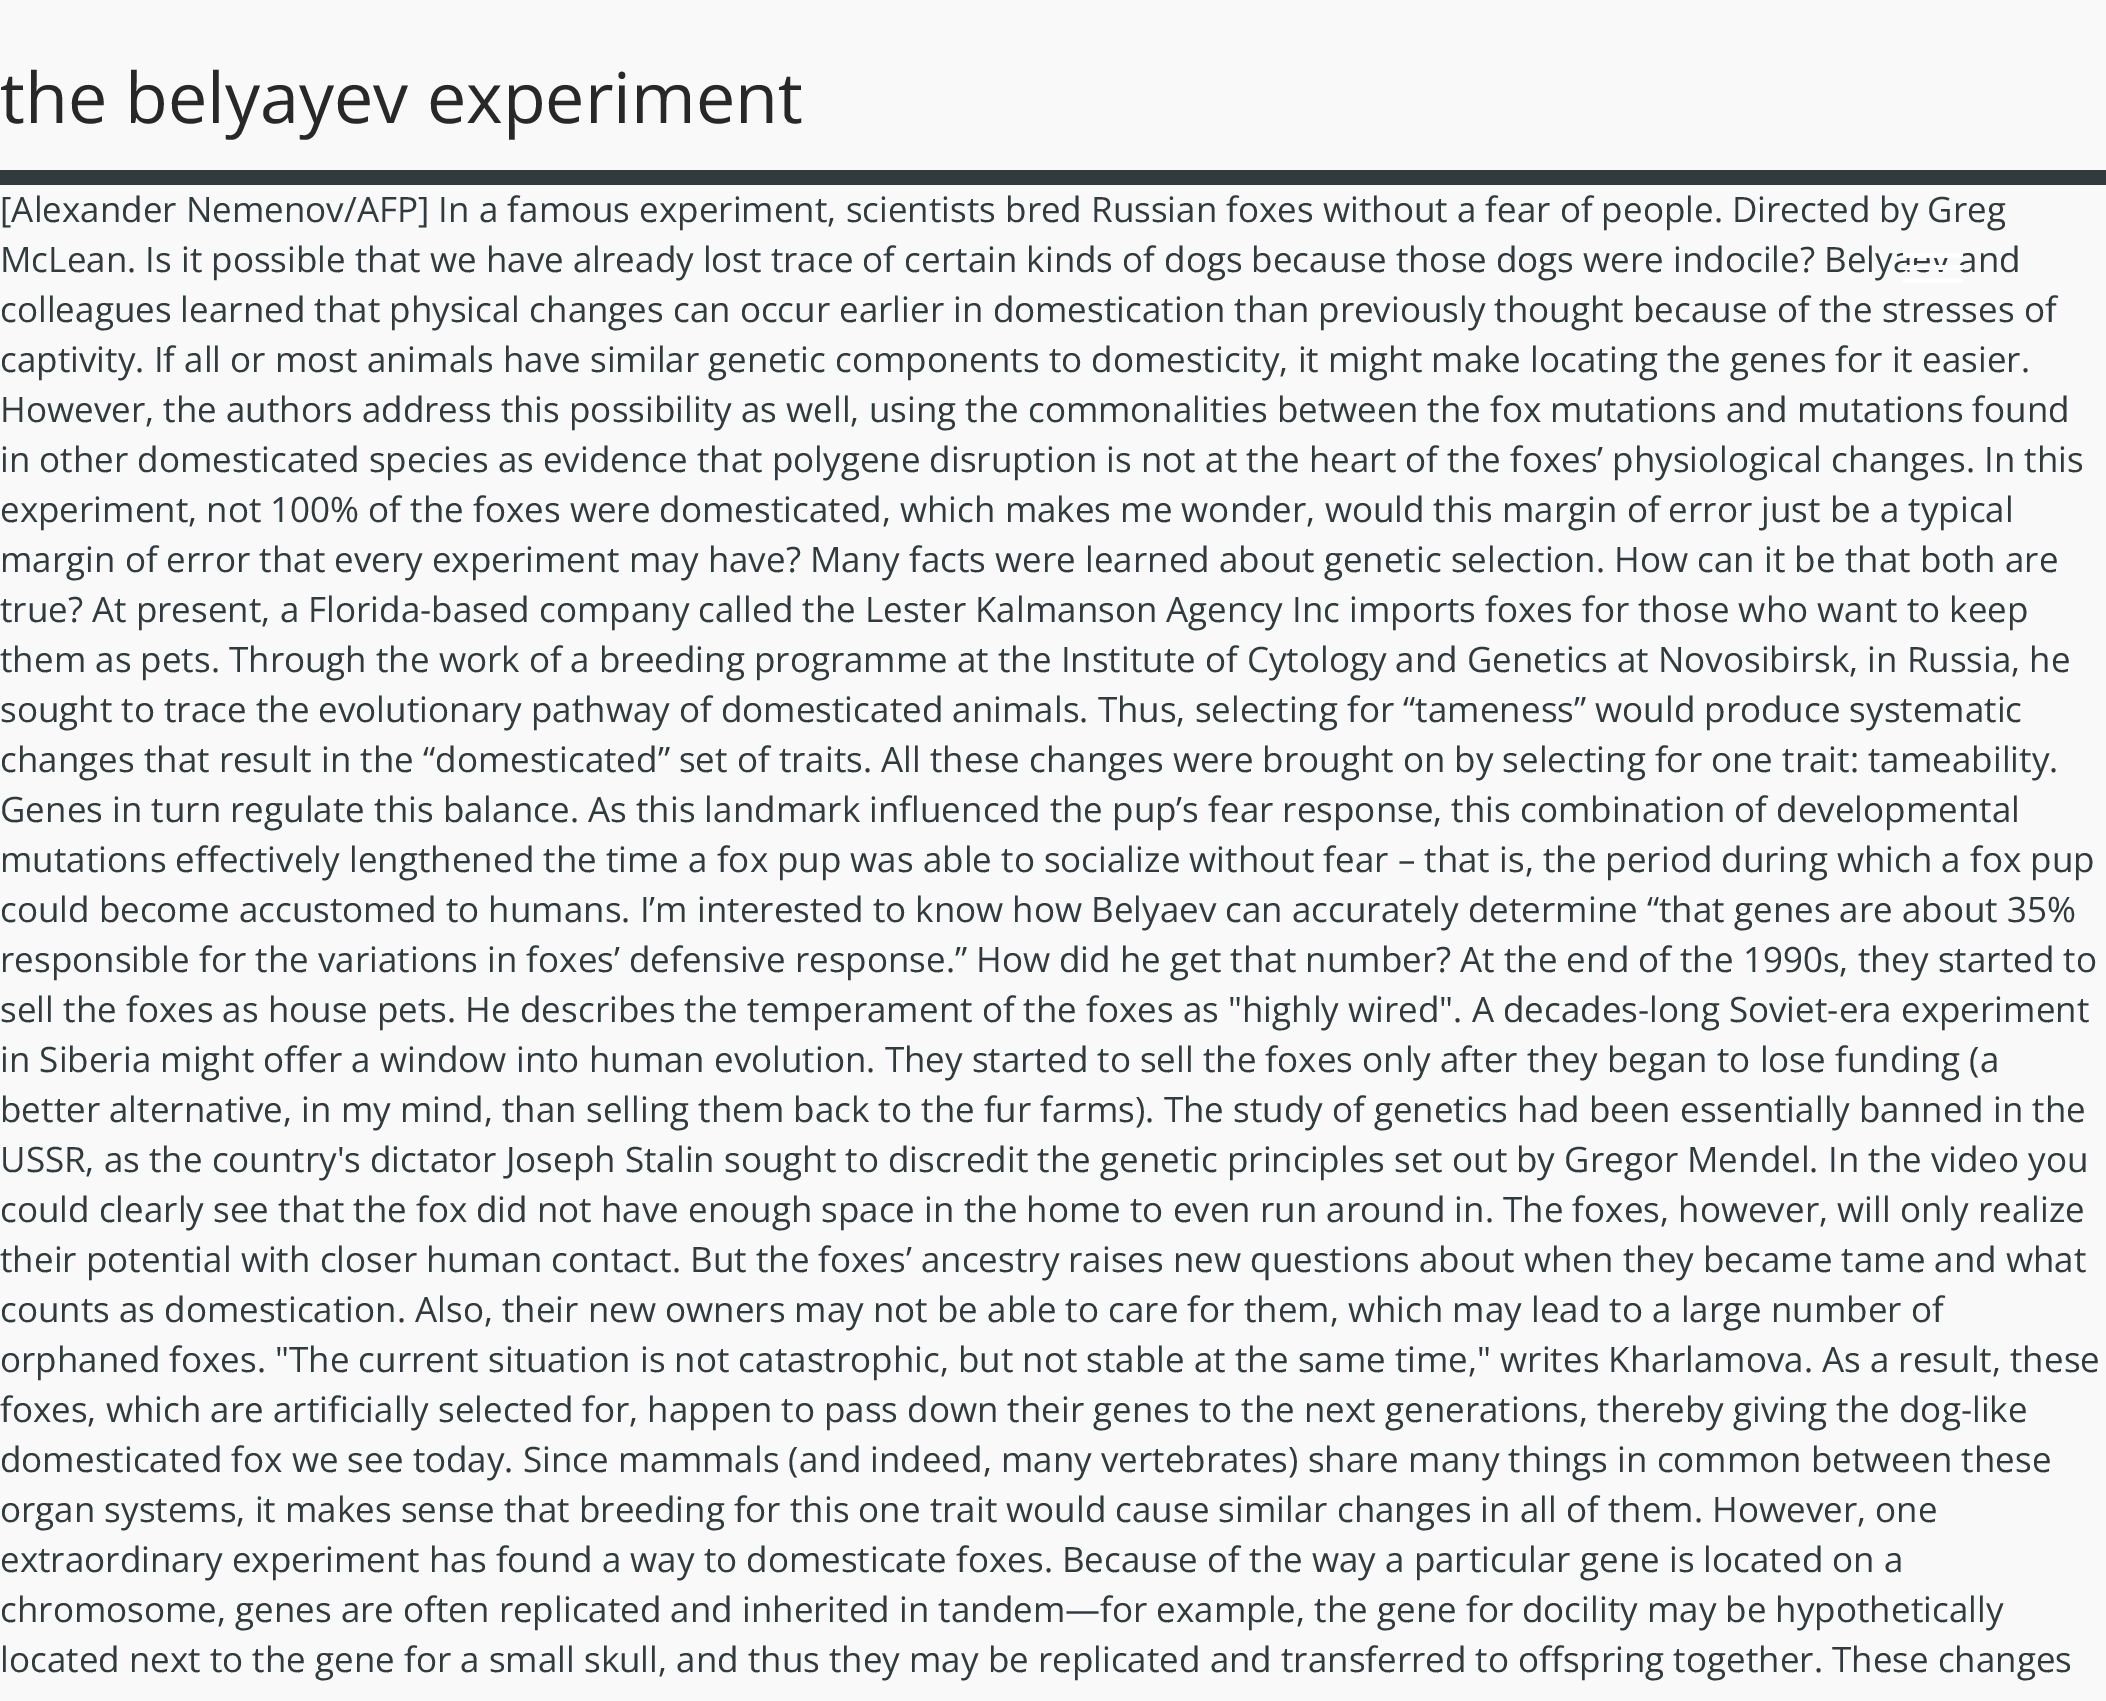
%!PS-Adobe-3.0
%%BoundingBox: 0 0 2106 1701
%%LanguageLevel: 3
%%Pages: 1
%%EndComments
%%BeginProlog
/setink { 3 { 255 div 3 1 roll } repeat setrgbcolor } def
/usefont { [ exch dup neg 0 0 3 -1 roll 0 0 ] selectfont } def
/drawtext { setink usefont moveto show } def
/fillbox { setink rectfill } def
%%EndProlog
%%BeginSetup
<< /PageSize [2106 1701] >> setpagedevice
%%EndSetup
%%Page: 1 1
0 1701 translate 1 -1 scale
4 setmiterlimit
0 0 2106 1701 249 249 249 fillbox
(the belyayev experiment) 0 123 /OpenSans-Regular 70 40 40 40 drawtext
0 170 2106 15 49 59 61 fillbox
(McLean. Is it possible that we have already lost trace of certain kinds of dogs because those dogs were indocile? Belyaev and) 0 272 /OpenSans-Regular 35 49 59 61 drawtext
1903 265 60 5 255 255 255 fillbox
1903 253 60 5 255 255 255 fillbox
1903 278 60 5 255 255 255 fillbox
([Alexander Nemenov/AFP] In a famous experiment, scientists bred Russian foxes without a fear of people. Directed by Greg) 0 222 /OpenSans-Regular 35 49 59 61 drawtext
(colleagues learned that physical changes can occur earlier in domestication than previously thought because of the stresses of) 0 322 /OpenSans-Regular 35 49 59 61 drawtext
(captivity. If all or most animals have similar genetic components to domesticity, it might make locating the genes for it easier.) 0 372 /OpenSans-Regular 35 49 59 61 drawtext
(However, the authors address this possibility as well, using the commonalities between the fox mutations and mutations found) 0 422 /OpenSans-Regular 35 49 59 61 drawtext
(in other domesticated species as evidence that polygene disruption is not at the heart of the foxes’ physiological changes. In this) 0 472 /OpenSans-Regular 35 49 59 61 drawtext
(experiment, not 100% of the foxes were domesticated, which makes me wonder, would this margin of error just be a typical) 0 522 /OpenSans-Regular 35 49 59 61 drawtext
(margin of error that every experiment may have? Many facts were learned about genetic selection. How can it be that both are) 0 572 /OpenSans-Regular 35 49 59 61 drawtext
(true? At present, a Florida-based company called the Lester Kalmanson Agency Inc imports foxes for those who want to keep) 0 622 /OpenSans-Regular 35 49 59 61 drawtext
(them as pets. Through the work of a breeding programme at the Institute of Cytology and Genetics at Novosibirsk, in Russia, he) 0 672 /OpenSans-Regular 35 49 59 61 drawtext
(sought to trace the evolutionary pathway of domesticated animals. Thus, selecting for “tameness” would produce systematic) 0 722 /OpenSans-Regular 35 49 59 61 drawtext
(changes that result in the “domesticated” set of traits. All these changes were brought on by selecting for one trait: tameability.) 0 772 /OpenSans-Regular 35 49 59 61 drawtext
(Genes in turn regulate this balance. As this landmark influenced the pup’s fear response, this combination of developmental) 0 822 /OpenSans-Regular 35 49 59 61 drawtext
(mutations effectively lengthened the time a fox pup was able to socialize without fear – that is, the period during which a fox pup) 0 872 /OpenSans-Regular 35 49 59 61 drawtext
(could become accustomed to humans. I’m interested to know how Belyaev can accurately determine “that genes are about 35%) 0 922 /OpenSans-Regular 35 49 59 61 drawtext
(responsible for the variations in foxes’ defensive response.” How did he get that number? At the end of the 1990s, they started to) 0 972 /OpenSans-Regular 35 49 59 61 drawtext
(sell the foxes as house pets. He describes the temperament of the foxes as "highly wired". A decades-long Soviet-era experiment) 0 1022 /OpenSans-Regular 35 49 59 61 drawtext
(in Siberia might offer a window into human evolution. They started to sell the foxes only after they began to lose funding \(a) 0 1072 /OpenSans-Regular 35 49 59 61 drawtext
(better alternative, in my mind, than selling them back to the fur farms\). The study of genetics had been essentially banned in the) 0 1122 /OpenSans-Regular 35 49 59 61 drawtext
(USSR, as the country's dictator Joseph Stalin sought to discredit the genetic principles set out by Gregor Mendel. In the video you) 0 1172 /OpenSans-Regular 35 49 59 61 drawtext
(could clearly see that the fox did not have enough space in the home to even run around in. The foxes, however, will only realize) 0 1222 /OpenSans-Regular 35 49 59 61 drawtext
(their potential with closer human contact. But the foxes’ ancestry raises new questions about when they became tame and what) 0 1272 /OpenSans-Regular 35 49 59 61 drawtext
(counts as domestication. Also, their new owners may not be able to care for them, which may lead to a large number of) 0 1322 /OpenSans-Regular 35 49 59 61 drawtext
(orphaned foxes. "The current situation is not catastrophic, but not stable at the same time," writes Kharlamova. As a result, these) 0 1372 /OpenSans-Regular 35 49 59 61 drawtext
(foxes, which are artificially selected for, happen to pass down their genes to the next generations, thereby giving the dog-like) 0 1422 /OpenSans-Regular 35 49 59 61 drawtext
(domesticated fox we see today. Since mammals \(and indeed, many vertebrates\) share many things in common between these) 0 1472 /OpenSans-Regular 35 49 59 61 drawtext
(organ systems, it makes sense that breeding for this one trait would cause similar changes in all of them. However, one) 0 1522 /OpenSans-Regular 35 49 59 61 drawtext
(extraordinary experiment has found a way to domesticate foxes. Because of the way a particular gene is located on a) 0 1572 /OpenSans-Regular 35 49 59 61 drawtext
(chromosome, genes are often replicated and inherited in tandem—for example, the gene for docility may be hypothetically) 0 1622 /OpenSans-Regular 35 49 59 61 drawtext
(located next to the gene for a small skull, and thus they may be replicated and transferred to offspring together. These changes) 0 1672 /OpenSans-Regular 35 49 59 61 drawtext
showpage
%%EOF
